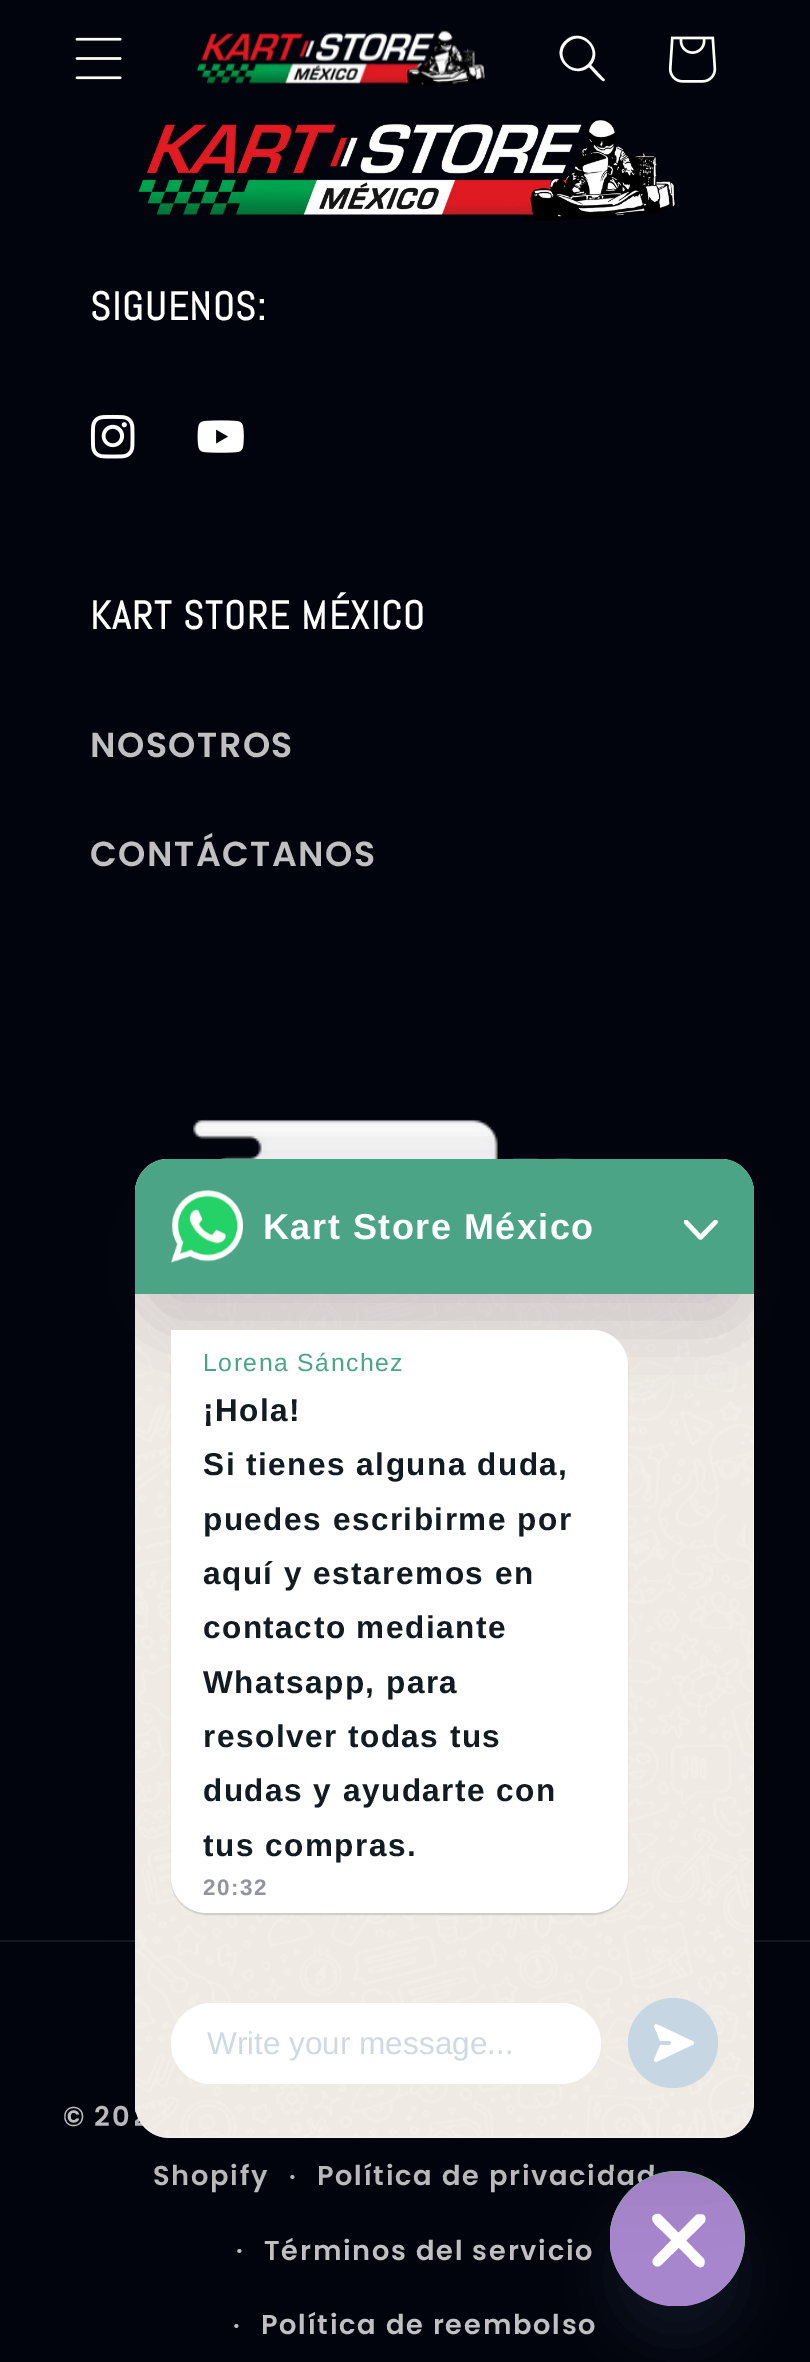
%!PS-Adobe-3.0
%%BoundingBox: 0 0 810 2362
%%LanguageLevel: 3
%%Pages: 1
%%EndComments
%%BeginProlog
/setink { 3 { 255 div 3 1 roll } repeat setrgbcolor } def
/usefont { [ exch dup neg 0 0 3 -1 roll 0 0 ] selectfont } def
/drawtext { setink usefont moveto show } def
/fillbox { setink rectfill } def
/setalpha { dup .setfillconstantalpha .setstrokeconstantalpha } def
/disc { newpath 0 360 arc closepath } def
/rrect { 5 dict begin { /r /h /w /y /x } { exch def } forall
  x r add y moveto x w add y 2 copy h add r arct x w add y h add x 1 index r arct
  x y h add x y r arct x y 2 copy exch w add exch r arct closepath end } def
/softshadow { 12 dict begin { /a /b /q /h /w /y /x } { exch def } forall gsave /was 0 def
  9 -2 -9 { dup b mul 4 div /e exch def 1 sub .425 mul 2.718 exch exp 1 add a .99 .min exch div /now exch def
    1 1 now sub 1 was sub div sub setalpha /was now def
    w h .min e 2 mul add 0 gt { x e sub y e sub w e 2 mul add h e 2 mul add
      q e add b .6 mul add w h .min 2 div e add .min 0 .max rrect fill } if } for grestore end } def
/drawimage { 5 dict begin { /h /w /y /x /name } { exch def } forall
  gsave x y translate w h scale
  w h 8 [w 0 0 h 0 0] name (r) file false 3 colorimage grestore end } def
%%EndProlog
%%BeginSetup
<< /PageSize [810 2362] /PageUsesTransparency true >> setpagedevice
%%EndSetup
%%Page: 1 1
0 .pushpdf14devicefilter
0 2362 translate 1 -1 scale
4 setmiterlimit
0 0 810 2362 1 4 13 fillbox
(assets/img1.rgb) 75 37 47 43 drawimage
(assets/img2.rgb) 196 30 289 57 drawimage
255 255 255 setink
588 64 moveto 574 78 553 57 567 43 curveto 581 29 602 50 588 64 curveto closepath 589 67 moveto 572 81 549 56 565 41 curveto 581 25 605 49 591 65 curveto 605 80 lineto 604 81 lineto 603 83 591 69 589 67 curveto closepath eofill
(assets/img3.rgb) 668 36 49 47 drawimage
(assets/img4.rgb) 138 118 537 103 drawimage
/Abel-Bold 39.5 usefont
90 320 moveto 1.5 0 (SIGUENOS:) ashow
(assets/img5.rgb) 90 414 45 45 drawimage
(assets/img6.rgb) 197 420 47 33 drawimage
90 629 moveto 1.5 0 (KART STORE MÉXICO) ashow
/Poppins-SemiBold 34.75 usefont
192 192 195 setink
90 757 moveto 1.5 0 (NOSOTROS) ashow
90 866 moveto 1.5 0 (CONTÁCTANOS) ashow
(assets/img7.rgb) 193 1119 381 40 drawimage
0 1940 810 2 21 24 32 fillbox
/Poppins-SemiBold 27.25 usefont
192 192 195 setink
63 2126 moveto 1.75 0 (© 20) ashow
153 2185 moveto 1.75 0 (Shopify) ashow
/Poppins-SemiBold 24.75 usefont
289 2185 moveto 1.75 0 (·) ashow
/Poppins-SemiBold 27.25 usefont
317 2185 moveto 1.75 0 (Política de privacidad) ashow
/Poppins-SemiBold 24.75 usefont
236 2259 moveto 1.75 0 (·) ashow
/Poppins-SemiBold 27.25 usefont
264 2260 moveto 1.75 0 (Términos del servicio) ashow
/Poppins-SemiBold 24.75 usefont
233 2334 moveto 1.75 0 (·) ashow
/Poppins-SemiBold 27.25 usefont
261 2334 moveto 1.75 0 (Política de reembolso) ashow
73 230 112 setink
677.5 2238.5 67.5 disc fill
(assets/img10.rgb) 610 2171 135 135 drawimage
73 104 126 setink
610 2207 135 135 67.5 27 0.16 softshadow
gsave
610 2171 135 135 rectclip
168 134 205 setink
677 2239 67.5 disc fill
grestore
255 255 255 setink
661 2215 moveto 704 2259 lineto 705 2261 705 2263 704 2265 curveto 700 2272 692 2261 689 2258 curveto 661 2230 lineto 659 2228 648 2220 654 2215 curveto 656 2214 659 2213 661 2215 curveto closepath fill
704 2223 moveto 661 2265 lineto 659 2267 656 2267 654 2265 curveto 652 2263 652 2260 654 2258 curveto 696 2215 lineto 698 2214 702 2214 704 2215 curveto 706 2217 706 2221 704 2223 curveto closepath fill
0 0 0 setink
135 1170 619 979 34 45 0.16 softshadow
255 255 255 setink
135 1159 619 979 34 rrect fill
(assets/img8.rgb) 135 1159 619 979 drawimage
26 14 53 setink
135 1195 619 135 34 36 0.16 softshadow
74 164 133 setink
169 1159 moveto 720 1159 lineto 739 1159 754 1174 754 1193 curveto 754 1294 lineto 135 1294 lineto 135 1193 lineto 135 1174 150 1159 169 1159 curveto closepath fill
(assets/img9.rgb) 171 1190 72 73 drawimage
/LiberationSans-Bold 36 usefont
255 255 255 setink
263 1239 moveto 1.5 0 (Kart Store México) ashow
gsave
684 1220 34 20 rectclip
4.5 setlinewidth
1 setlinecap
1 setlinejoin
686 1222 moveto 700.5 1237.5 lineto 715.5 1222 lineto stroke
grestore
0 0 0 setink
171 1332 457 583 36 0.5 0.13 softshadow
255 255 255 setink
171 1330 moveto 592 1330 lineto 612 1330 628 1346 628 1366 curveto 628 1877 lineto 628 1897 612 1913 592 1913 curveto 207 1913 lineto 187 1913 171 1897 171 1877 curveto closepath fill
/LiberationSans-Regular 24.75 usefont
74 164 133 setink
203 1371 moveto 1.5 0 (Lorena Sánchez) ashow
/LiberationSans-Bold 31.5 usefont
17 27 33 setink
203 1421 moveto 1.5 0 (¡Hola!) ashow
203 1475 moveto 1.5 0 (Si tienes alguna duda,) ashow
203 1530 moveto 1.5 0 (puedes escribirme por) ashow
203 1584 moveto 1.5 0 (aquí y estaremos en) ashow
203 1638 moveto 1.5 0 (contacto mediante) ashow
203 1693 moveto 1.5 0 (Whatsapp, para) ashow
203 1747 moveto 1.5 0 (resolver todas tus) ashow
203 1801 moveto 1.5 0 (dudas y ayudarte con) ashow
203 1856 moveto 1.5 0 (tus compras.) ashow
/LiberationSans-Bold 22.5 usefont
147 147 157 setink
203 1895 moveto 1.5 0 (20:32) ashow
255 255 255 setink
171 2003 430 81 40.5 rrect fill
(Write your message...) 207 2054 /LiberationSans-Regular 31.5 206 218 227 drawtext
198 215 227 setink
673 2043 45 disc fill
255 255 255 setink
692 2043 moveto 656 2060 lineto 663 2043 lineto 656 2026 lineto closepath gsave fill grestore
3.7 setlinewidth
1 setlinecap
1 setlinejoin
stroke
198 215 227 setink
669 2043 moveto 657 2043 lineto stroke
.poppdf14devicefilter showpage
%%EOF
